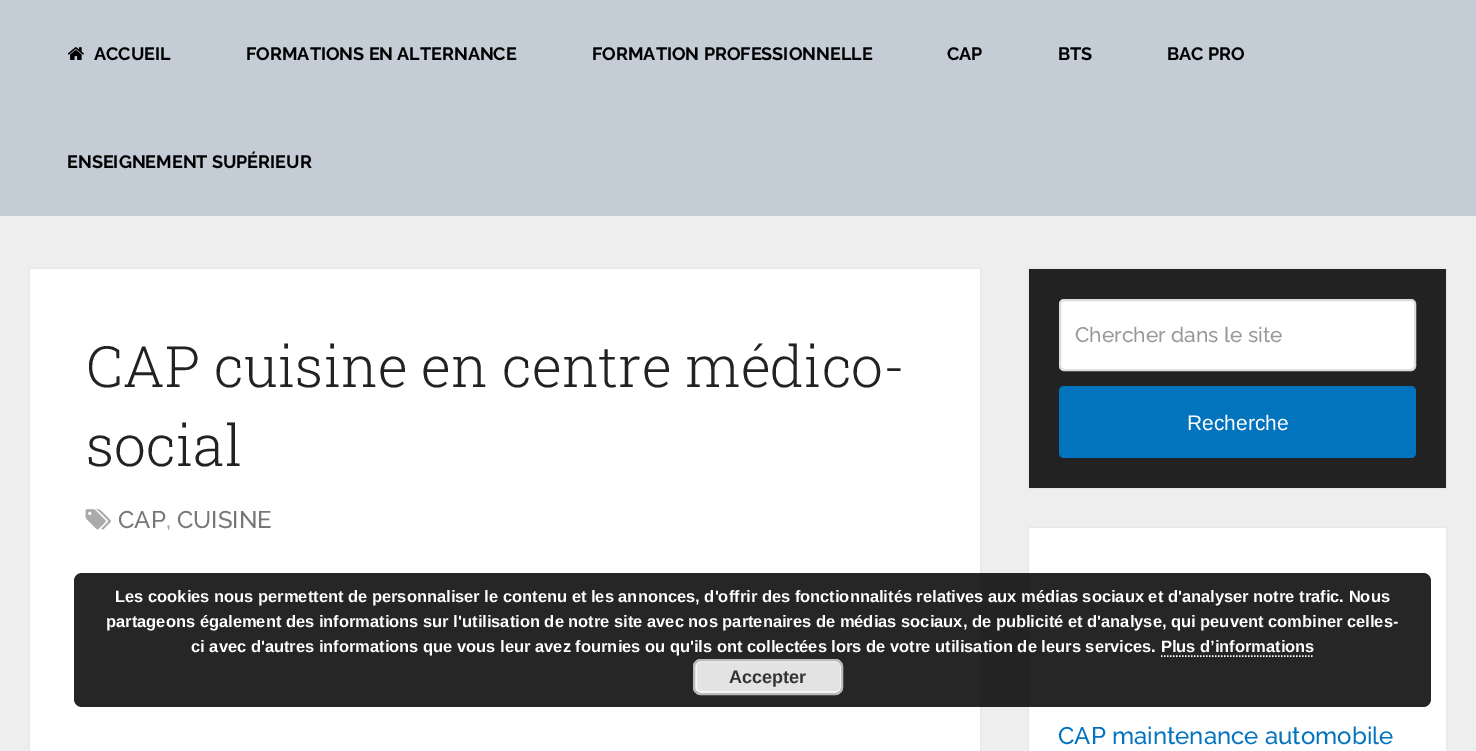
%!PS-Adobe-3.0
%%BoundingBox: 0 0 1476 751
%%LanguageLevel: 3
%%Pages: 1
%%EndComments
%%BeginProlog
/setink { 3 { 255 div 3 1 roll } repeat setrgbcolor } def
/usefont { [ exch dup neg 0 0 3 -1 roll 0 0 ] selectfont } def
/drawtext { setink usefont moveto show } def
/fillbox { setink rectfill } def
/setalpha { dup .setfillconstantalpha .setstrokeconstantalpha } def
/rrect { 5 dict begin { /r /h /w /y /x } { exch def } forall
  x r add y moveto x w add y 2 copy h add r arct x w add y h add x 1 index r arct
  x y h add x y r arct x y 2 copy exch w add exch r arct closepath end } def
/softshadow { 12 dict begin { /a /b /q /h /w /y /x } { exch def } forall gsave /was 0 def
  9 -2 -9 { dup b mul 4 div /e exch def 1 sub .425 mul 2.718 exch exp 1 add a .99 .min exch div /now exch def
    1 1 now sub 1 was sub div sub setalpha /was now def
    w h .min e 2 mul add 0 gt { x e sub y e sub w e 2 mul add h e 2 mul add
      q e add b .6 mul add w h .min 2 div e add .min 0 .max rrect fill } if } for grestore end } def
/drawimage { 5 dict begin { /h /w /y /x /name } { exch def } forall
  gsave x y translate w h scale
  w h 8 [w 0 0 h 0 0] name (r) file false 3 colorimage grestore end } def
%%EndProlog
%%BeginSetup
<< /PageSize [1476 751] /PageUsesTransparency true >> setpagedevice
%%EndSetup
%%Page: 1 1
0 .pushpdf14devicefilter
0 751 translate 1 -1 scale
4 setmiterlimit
0 0 1476 751 238 238 238 fillbox
0 0 1476 216 196 205 214 fillbox
(assets/img1.rgb) 67 47 17 13 drawimage
(ACCUEIL) 94 60 /Raleway-Bold 18 0 0 0 drawtext
(FORMATIONS EN ALTERNANCE) 246 60 /Raleway-Bold 18 0 0 0 drawtext
(FORMATION PROFESSIONNELLE) 592 60 /Raleway-Bold 18 0 0 0 drawtext
(CAP) 947 60 /Raleway-Bold 18 0 0 0 drawtext
(BTS) 1058 60 /Raleway-Bold 18 0 0 0 drawtext
(BAC PRO) 1167 60 /Raleway-Bold 18 0 0 0 drawtext
(ENSEIGNEMENT SUPÉRIEUR) 67 168 /Raleway-Bold 18 0 0 0 drawtext
50 50 50 setink
30 269 950 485 0 1 0.1 softshadow
30 269 950 482 255 255 255 fillbox
(CAP cuisine en centre médico-) 86 387 /RobotoSlab-Light 57 34 34 34 drawtext
(social) 86 466 /RobotoSlab-Light 57 34 34 34 drawtext
(assets/img2.rgb) 85 509 26 21 drawimage
(CAP) 118 528 /Raleway-Medium 24 119 119 119 drawtext
(,) 166 528 /Raleway-Medium 24 170 170 170 drawtext
(CUISINE) 177 528 /Raleway-Medium 24 119 119 119 drawtext
50 50 50 setink
1029 269 417 219 0 1 0.1 softshadow
1029 269 417 219 34 34 34 fillbox
255 255 255 setink
1060 300 355 70 4 rrect gsave fill grestore
221 221 221 setink
2 setlinewidth
stroke
(Chercher dans le site) 1075 342 /Raleway-Medium 21 153 153 153 drawtext
2 116 190 setink
1059 386 357 72 5 rrect fill
(Recherche) 1187 430 /LiberationSans-Regular 21 255 255 255 drawtext
50 50 50 setink
1029 528 417 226 0 1 0.1 softshadow
1029 528 417 223 255 255 255 fillbox
(CAP maintenance automobile) 1058 744 /Raleway-Medium 24 2 116 190 drawtext
0.85 setalpha
0 0 0 setink
74 573 1357 134 8 rrect fill
1 setalpha
(Les cookies nous permettent de personnaliser le contenu et les annonces, d'offrir des fonctionnalités relatives aux médias sociaux et d'analyser notre trafic. Nous) 115 602 /LiberationSans-Bold 16.5 255 255 255 drawtext
(partageons également des informations sur l'utilisation de notre site avec nos partenaires de médias sociaux, de publicité et d'analyse, qui peuvent combiner celles-) 106 627 /LiberationSans-Bold 16.5 255 255 255 drawtext
(ci avec d'autres informations que vous leur avez fournies ou qu'ils ont collectées lors de votre utilisation de leurs services. Plus d’informations) 191 652 /LiberationSans-Bold 16.5 255 255 255 drawtext
1.5 setlinewidth
[1.5 1.5] 0 setdash
1161 656 moveto 1314 656 lineto stroke
227 227 227 setink
693 659 150 36 8 rrect fill
246 246 246 setink
2 setlinewidth
[] 0 setdash
696 661 145 31 5 rrect stroke
187 187 187 setink
694 660 148 34 7 rrect stroke
(Accepter) 729 683 /LiberationSans-Bold 18 51 51 51 drawtext
.poppdf14devicefilter showpage
%%EOF
